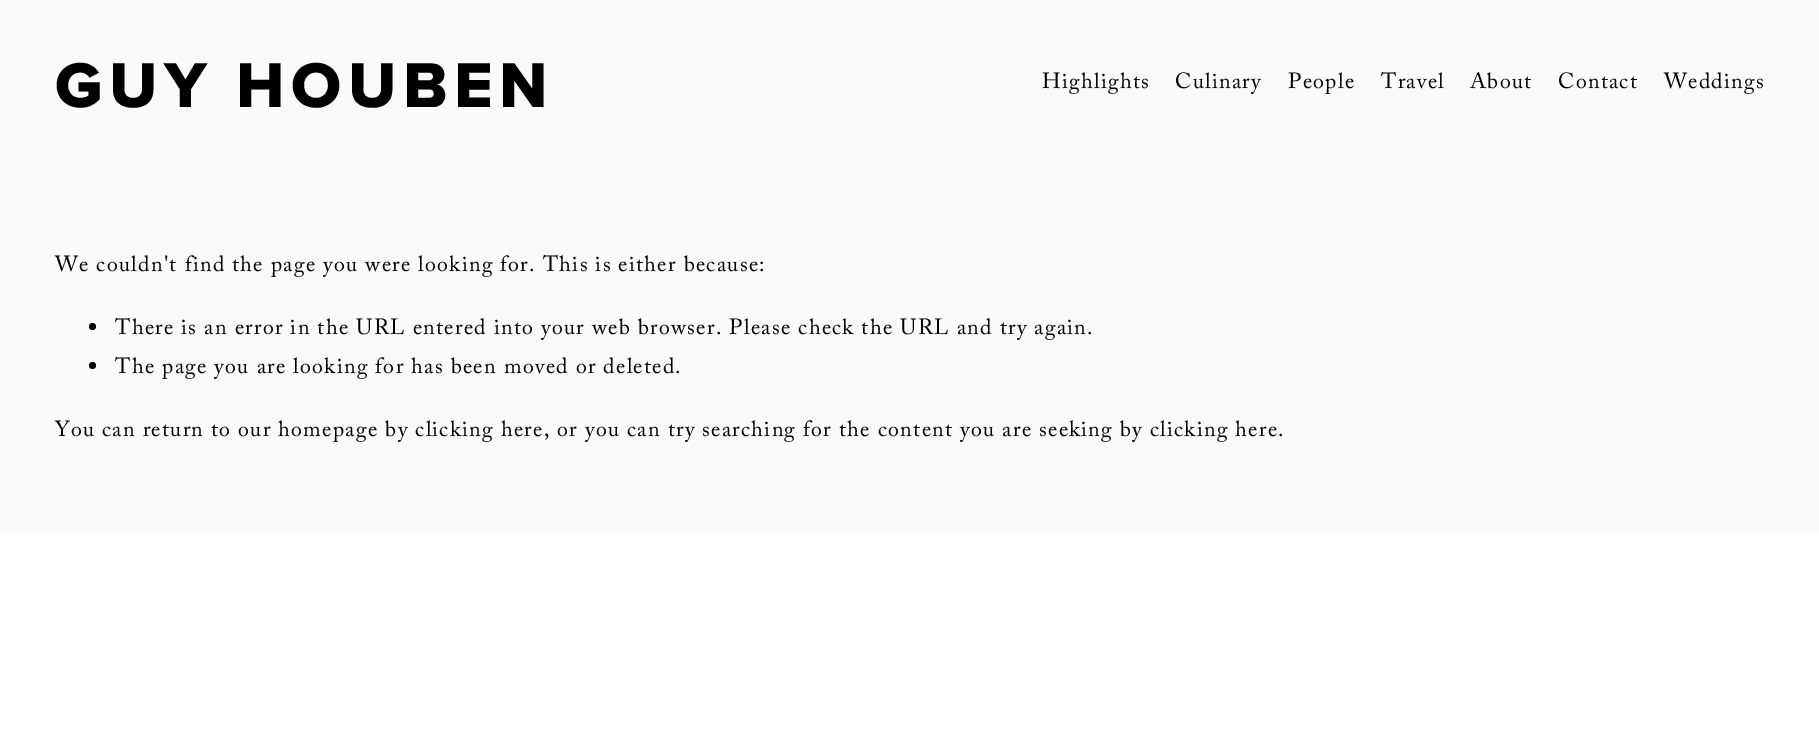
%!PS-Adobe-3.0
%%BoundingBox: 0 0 1819 742
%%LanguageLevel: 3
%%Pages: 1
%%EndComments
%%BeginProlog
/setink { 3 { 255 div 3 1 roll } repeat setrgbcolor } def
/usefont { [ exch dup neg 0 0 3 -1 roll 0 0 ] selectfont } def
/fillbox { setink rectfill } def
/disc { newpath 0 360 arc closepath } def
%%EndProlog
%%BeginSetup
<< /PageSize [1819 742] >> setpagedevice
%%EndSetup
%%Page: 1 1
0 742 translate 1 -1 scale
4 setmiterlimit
0 0 1819 742 250 250 250 fillbox
/ProximaNova-ExtraBold 65.5 usefont
0 0 0 setink
55 107 moveto 6.5 0 (GUY HOUBEN) ashow
/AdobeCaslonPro-Regular 21.8 usefont
1042 88 moveto 1.3 0 (Highlights) ashow
1175 88 moveto 1.3 0 (Culinary) ashow
1288 88 moveto 1.3 0 (People) ashow
1381 88 moveto 1.3 0 (Travel) ashow
1470 88 moveto 1.3 0 (About) ashow
1558 88 moveto 1.3 0 (Contact) ashow
1664 88 moveto 1.3 0 (Weddings) ashow
55 271 moveto 1.3 0 (We couldn't find the page you were looking for. This is either because:) ashow
92.5 326.5 3.5 disc fill
115 334 moveto 1.3 0 (There is an error in the URL entered into your web browser. Please check the URL and try again.) ashow
92.5 365.5 3.5 disc fill
115 373 moveto 1.3 0 (The page you are looking for has been moved or deleted.) ashow
55 436 moveto 1.3 0 (You can return to our homepage by clicking here, or you can try searching for the) ashow
878 436 moveto 1.3 0 (content you are seeking by clicking here.) ashow
0 533 1819 209 255 255 255 fillbox
showpage
%%EOF
